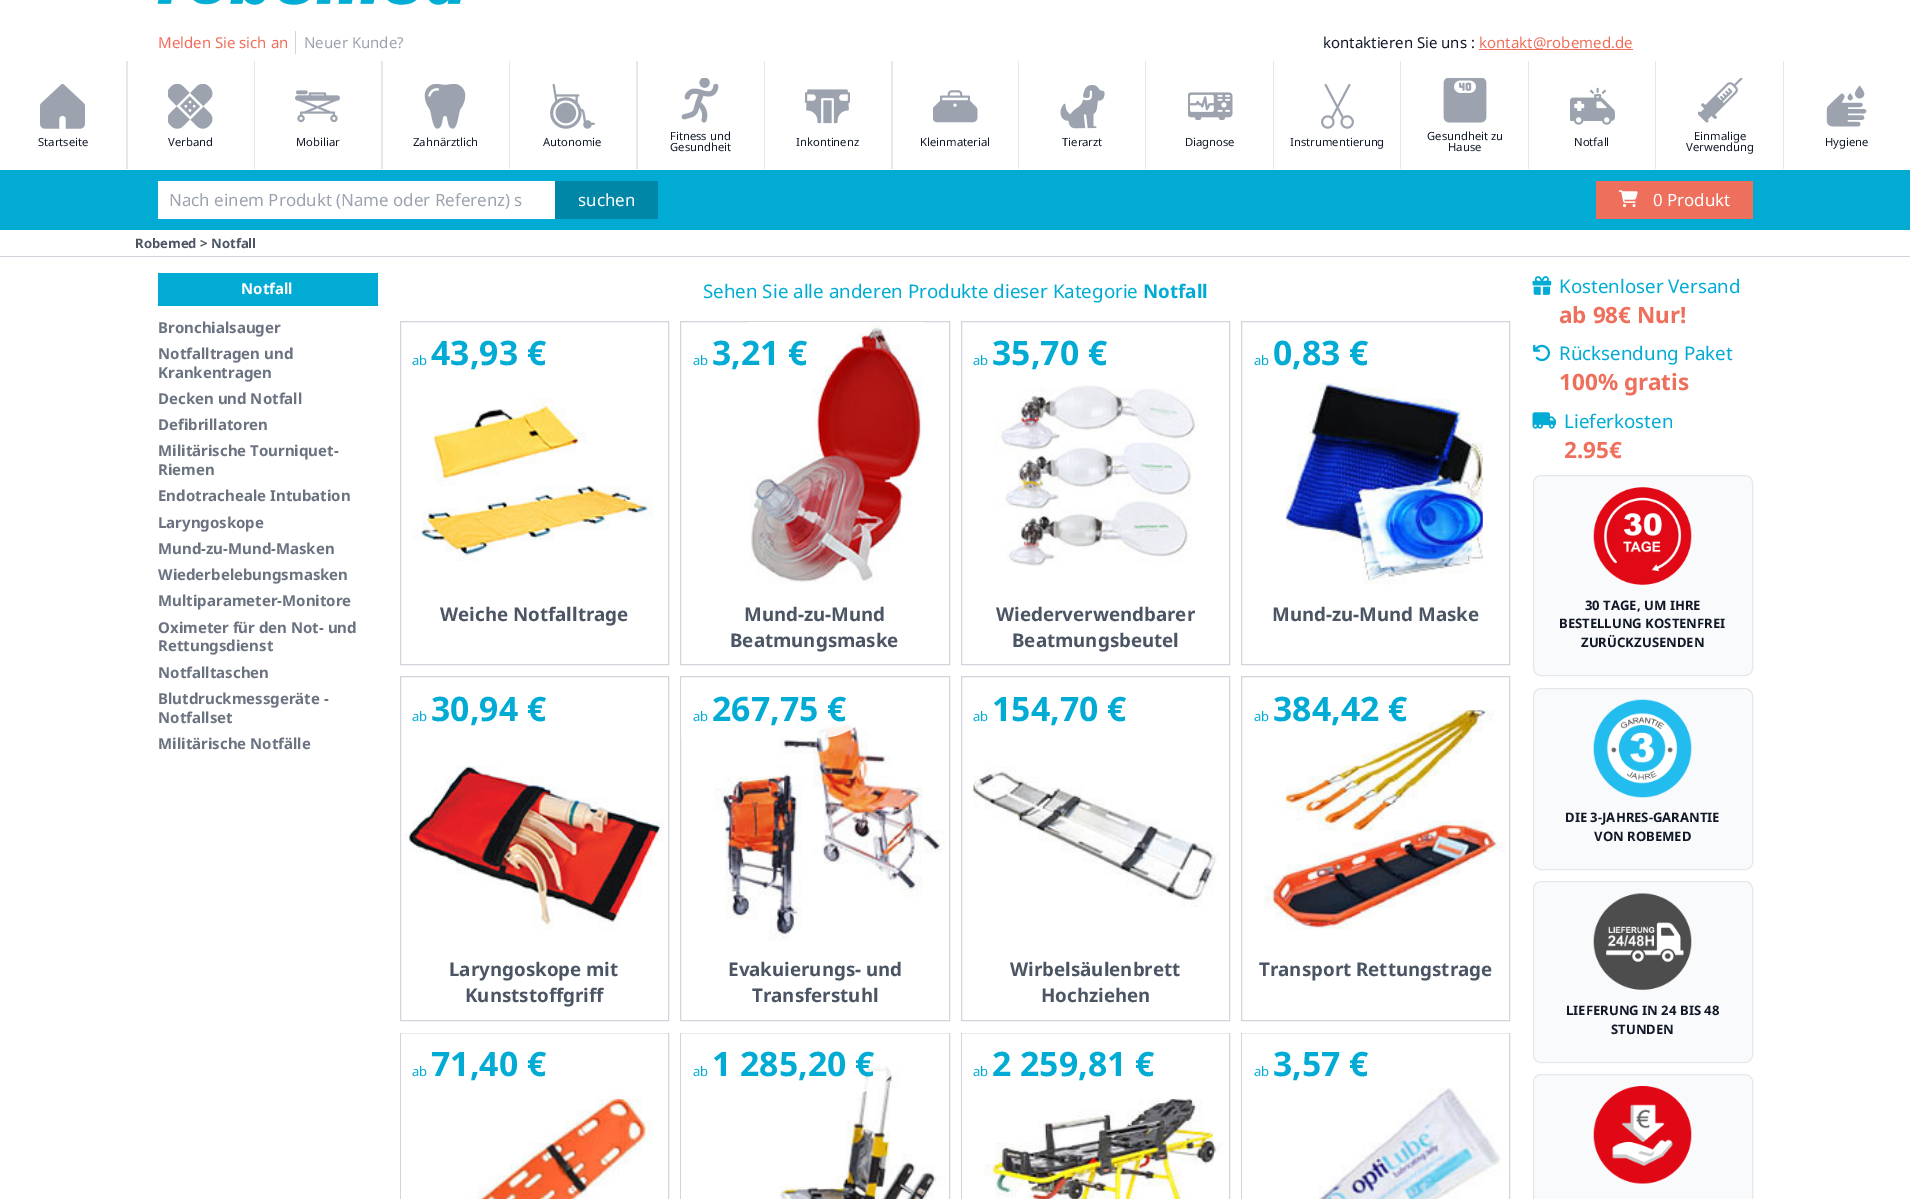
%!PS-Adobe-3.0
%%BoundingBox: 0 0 1910 1199
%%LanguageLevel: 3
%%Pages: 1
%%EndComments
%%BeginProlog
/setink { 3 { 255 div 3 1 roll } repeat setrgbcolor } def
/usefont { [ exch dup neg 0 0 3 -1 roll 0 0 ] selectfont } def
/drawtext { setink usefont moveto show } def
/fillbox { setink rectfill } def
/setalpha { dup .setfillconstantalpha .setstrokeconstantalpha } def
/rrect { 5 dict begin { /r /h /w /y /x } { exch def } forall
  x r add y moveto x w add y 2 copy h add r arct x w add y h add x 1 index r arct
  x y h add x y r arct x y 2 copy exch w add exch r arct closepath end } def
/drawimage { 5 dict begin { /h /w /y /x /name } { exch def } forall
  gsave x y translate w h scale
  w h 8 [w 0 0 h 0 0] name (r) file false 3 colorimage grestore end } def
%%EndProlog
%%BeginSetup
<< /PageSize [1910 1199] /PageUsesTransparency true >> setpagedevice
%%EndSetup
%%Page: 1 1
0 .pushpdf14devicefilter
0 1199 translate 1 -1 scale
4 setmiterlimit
0 0 1910 1199 255 255 255 fillbox
(assets/img1.rgb) 157 0 304 5 drawimage
(Melden Sie sich an) 158 48 /NotoSans-Regular 15 238 111 91 drawtext
295 31 1 23 209 213 219 fillbox
(Neuer Kunde?) 304 48 /NotoSans-Regular 15 156 163 175 drawtext
(kontaktieren Sie uns :) 1323 48 /NotoSans-Regular 15 17 24 39 drawtext
1479 49 154 1 238 111 91 fillbox
(kontakt@robemed.de) 1479 48 /NotoSans-Regular 15 238 111 91 drawtext
126 61 1658 108 229 231 235 fillbox
(assets/img2.rgb) 40 84 45 45 drawimage
(Startseite) 38 146 /NotoSans-Regular 11.25 17 24 39 drawtext
128 61 126 108 255 255 255 fillbox
(assets/img3.rgb) 168 84 45 45 drawimage
(Verband) 168 146 /NotoSans-Regular 11.25 17 24 39 drawtext
255 61 126 108 255 255 255 fillbox
(assets/img4.rgb) 295 90 45 33 drawimage
(Mobiliar) 296 146 /NotoSans-Regular 11.25 17 24 39 drawtext
383 61 126 108 255 255 255 fillbox
(assets/img5.rgb) 424 84 42 45 drawimage
(Zahnärztlich) 413 146 /NotoSans-Regular 11.25 17 24 39 drawtext
510 61 126 108 255 255 255 fillbox
(assets/img6.rgb) 550 84 45 45 drawimage
(Autonomie) 543 146 /NotoSans-Regular 11.25 17 24 39 drawtext
638 61 126 108 255 255 255 fillbox
(assets/img7.rgb) 681 78 38 45 drawimage
(Fitness und) 670 140 /NotoSans-Regular 11.25 17 24 39 drawtext
(Gesundheit) 670 151 /NotoSans-Regular 11.25 17 24 39 drawtext
765 61 126 108 255 255 255 fillbox
(assets/img8.rgb) 805 89 45 35 drawimage
(Inkontinenz) 796 146 /NotoSans-Regular 11.25 17 24 39 drawtext
893 61 125 108 255 255 255 fillbox
(assets/img9.rgb) 933 90 45 33 drawimage
(Kleinmaterial) 920 146 /NotoSans-Regular 11.25 17 24 39 drawtext
1019 61 126 108 255 255 255 fillbox
(assets/img10.rgb) 1060 85 45 44 drawimage
(Tierarzt) 1062 146 /NotoSans-Regular 11.25 17 24 39 drawtext
1146 61 127 108 255 255 255 fillbox
(assets/img11.rgb) 1188 92 45 29 drawimage
(Diagnose) 1185 146 /NotoSans-Regular 11.25 17 24 39 drawtext
1274 61 126 108 255 255 255 fillbox
(assets/img12.rgb) 1321 84 33 45 drawimage
(Instrumentierung) 1290 146 /NotoSans-Regular 11.25 17 24 39 drawtext
1401 61 127 108 255 255 255 fillbox
(assets/img13.rgb) 1443 78 44 45 drawimage
(Gesundheit zu) 1427 140 /NotoSans-Regular 11.25 17 24 39 drawtext
(Hause) 1448 151 /NotoSans-Regular 11.25 17 24 39 drawtext
1529 61 126 108 255 255 255 fillbox
(assets/img14.rgb) 1570 87 45 38 drawimage
(Notfall) 1574 146 /NotoSans-Regular 11.25 17 24 39 drawtext
1656 61 127 108 255 255 255 fillbox
(assets/img15.rgb) 1698 78 45 45 drawimage
(Einmalige) 1694 140 /NotoSans-Regular 11.25 17 24 39 drawtext
(Verwendung) 1686 151 /NotoSans-Regular 11.25 17 24 39 drawtext
(assets/img16.rgb) 1826 85 41 42 drawimage
(Hygiene) 1825 146 /NotoSans-Regular 11.25 17 24 39 drawtext
0 170 1910 60 1 171 212 fillbox
158 181 397 38 255 255 255 fillbox
(Nach einem Produkt \(Name oder Referenz\) s) 169 206 /NotoSans-Regular 16.9 156 163 175 drawtext
555 181 103 38 0 134 166 fillbox
(suchen) 578 206 /NotoSans-Regular 16.9 255 255 255 drawtext
1596 181 157 38 238 111 91 fillbox
(assets/img17.rgb) 1618 190 20 18 drawimage
(0 Produkt) 1653 206 /NotoSans-Regular 16.9 255 255 255 drawtext
0 256 1910 1 209 213 219 fillbox
(Robemed > Notfall) 135 248 /NotoSans-Bold 13.1 75 85 99 drawtext
158 273 220 33 1 171 212 fillbox
(Notfall) 241 294 /NotoSans-Bold 15 255 255 255 drawtext
(Bronchialsauger) 158 333 /NotoSans-Bold 15 107 114 128 drawtext
(Notfalltragen und) 158 359 /NotoSans-Bold 15 107 114 128 drawtext
(Krankentragen) 158 378 /NotoSans-Bold 15 107 114 128 drawtext
(Decken und Notfall) 158 404 /NotoSans-Bold 15 107 114 128 drawtext
(Defibrillatoren) 158 430 /NotoSans-Bold 15 107 114 128 drawtext
(Militärische Tourniquet-) 158 456 /NotoSans-Bold 15 107 114 128 drawtext
(Riemen) 158 475 /NotoSans-Bold 15 107 114 128 drawtext
(Endotracheale Intubation) 158 501 /NotoSans-Bold 15 107 114 128 drawtext
(Laryngoskope) 158 528 /NotoSans-Bold 15 107 114 128 drawtext
(Mund-zu-Mund-Masken) 158 554 /NotoSans-Bold 15 107 114 128 drawtext
(Wiederbelebungsmasken) 158 580 /NotoSans-Bold 15 107 114 128 drawtext
(Multiparameter-Monitore) 158 606 /NotoSans-Bold 15 107 114 128 drawtext
(Oximeter für den Not- und) 158 633 /NotoSans-Bold 15 107 114 128 drawtext
(Rettungsdienst) 158 651 /NotoSans-Bold 15 107 114 128 drawtext
(Notfalltaschen) 158 678 /NotoSans-Bold 15 107 114 128 drawtext
(Blutdruckmessgeräte -) 158 704 /NotoSans-Bold 15 107 114 128 drawtext
(Notfallset) 158 723 /NotoSans-Bold 15 107 114 128 drawtext
(Militärische Notfälle) 158 749 /NotoSans-Bold 15 107 114 128 drawtext
(Sehen Sie alle anderen Produkte dieser Kategorie) 703 298 /NotoSans-Regular 18.75 1 171 212 drawtext
(Notfall) 1143 298 /NotoSans-Bold 18.75 1 171 212 drawtext
209 213 219 setink
400.5 321.5 268 343 rectstroke
(ab) 412 365 /NotoSans-Regular 13.1 1 171 212 drawtext
(43,93 €) 431 365 /NotoSans-Bold 33.75 1 171 212 drawtext
(assets/img18.rgb) 412 398 241 163 drawimage
(Weiche Notfalltrage) 440 621 /NotoSans-Bold 18.75 75 85 99 drawtext
209 213 219 setink
680.5 321.5 269 343 rectstroke
(assets/img19.rgb) 749 322 174 262 drawimage
(ab) 693 365 /NotoSans-Regular 13.1 1 171 212 drawtext
(3,21 €) 712 365 /NotoSans-Bold 33.75 1 171 212 drawtext
(Mund-zu-Mund) 744 621 /NotoSans-Bold 18.75 75 85 99 drawtext
(Beatmungsmaske) 730 647 /NotoSans-Bold 18.75 75 85 99 drawtext
209 213 219 setink
961.5 321.5 268 343 rectstroke
(ab) 973 365 /NotoSans-Regular 13.1 1 171 212 drawtext
(35,70 €) 992 365 /NotoSans-Bold 33.75 1 171 212 drawtext
(assets/img20.rgb) 995 385 204 181 drawimage
(Wiederverwendbarer) 996 621 /NotoSans-Bold 18.75 75 85 99 drawtext
(Beatmungsbeutel) 1012 647 /NotoSans-Bold 18.75 75 85 99 drawtext
209 213 219 setink
1241.5 321.5 268 343 rectstroke
(assets/img21.rgb) 1286 377 197 208 drawimage
0.9 setalpha
255 255 255 setink
1243 323 moveto 1403 323 lineto 1403 356 1376 383 1343 383 curveto 1243 383 lineto closepath fill
1 setalpha
(ab) 1254 365 /NotoSans-Regular 13.1 1 171 212 drawtext
(0,83 €) 1273 365 /NotoSans-Bold 33.75 1 171 212 drawtext
(Mund-zu-Mund Maske) 1272 621 /NotoSans-Bold 18.75 75 85 99 drawtext
209 213 219 setink
400.5 676.5 268 344 rectstroke
(ab) 412 721 /NotoSans-Regular 13.1 1 171 212 drawtext
(30,94 €) 431 721 /NotoSans-Bold 33.75 1 171 212 drawtext
(assets/img22.rgb) 404 765 260 165 drawimage
(Laryngoskope mit) 449 976 /NotoSans-Bold 18.75 75 85 99 drawtext
(Kunststoffgriff) 465 1002 /NotoSans-Bold 18.75 75 85 99 drawtext
209 213 219 setink
680.5 676.5 269 344 rectstroke
(assets/img23.rgb) 714 721 231 220 drawimage
0.9 setalpha
255 255 255 setink
681 678 moveto 880 678 lineto 880 711 853 738 820 738 curveto 681 738 lineto closepath fill
1 setalpha
(ab) 693 721 /NotoSans-Regular 13.1 1 171 212 drawtext
(267,75 €) 712 721 /NotoSans-Bold 33.75 1 171 212 drawtext
(Evakuierungs- und) 728 976 /NotoSans-Bold 18.75 75 85 99 drawtext
(Transferstuhl) 752 1002 /NotoSans-Bold 18.75 75 85 99 drawtext
209 213 219 setink
961.5 676.5 268 344 rectstroke
(ab) 973 721 /NotoSans-Regular 13.1 1 171 212 drawtext
(154,70 €) 992 721 /NotoSans-Bold 33.75 1 171 212 drawtext
(assets/img24.rgb) 973 767 246 140 drawimage
(Wirbelsäulenbrett) 1010 976 /NotoSans-Bold 18.75 75 85 99 drawtext
(Hochziehen) 1041 1002 /NotoSans-Bold 18.75 75 85 99 drawtext
209 213 219 setink
1241.5 676.5 268 344 rectstroke
(assets/img25.rgb) 1264 710 241 220 drawimage
(ab) 1254 721 /NotoSans-Regular 13.1 1 171 212 drawtext
(384,42 €) 1273 721 /NotoSans-Bold 33.75 1 171 212 drawtext
(Transport Rettungstrage) 1259 976 /NotoSans-Bold 18.75 75 85 99 drawtext
209 213 219 setink
400.5 1033.5 268 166 rectstroke
(assets/img26.rgb) 401 1033 267 166 drawimage
(ab) 412 1076 /NotoSans-Regular 13.1 1 171 212 drawtext
(71,40 €) 431 1076 /NotoSans-Bold 33.75 1 171 212 drawtext
209 213 219 setink
680.5 1033.5 269 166 rectstroke
(assets/img27.rgb) 681 1033 268 166 drawimage
0.9 setalpha
255 255 255 setink
681 1034 moveto 908 1034 lineto 908 1067 881 1094 848 1094 curveto 681 1094 lineto closepath fill
1 setalpha
(ab) 693 1076 /NotoSans-Regular 13.1 1 171 212 drawtext
(1 285,20 €) 712 1076 /NotoSans-Bold 33.75 1 171 212 drawtext
209 213 219 setink
961.5 1033.5 268 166 rectstroke
(assets/img28.rgb) 962 1033 267 166 drawimage
(ab) 973 1076 /NotoSans-Regular 13.1 1 171 212 drawtext
(2 259,81 €) 992 1076 /NotoSans-Bold 33.75 1 171 212 drawtext
209 213 219 setink
1241.5 1033.5 268 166 rectstroke
(assets/img29.rgb) 1242 1033 267 166 drawimage
(ab) 1254 1076 /NotoSans-Regular 13.1 1 171 212 drawtext
(3,57 €) 1273 1076 /NotoSans-Bold 33.75 1 171 212 drawtext
(assets/img30.rgb) 1532 276 20 19 drawimage
(Kostenloser Versand) 1559 293 /NotoSans-Regular 18.75 1 171 212 drawtext
(ab 98€ Nur!) 1559 323 /NotoSans-Bold 22.5 238 111 91 drawtext
(assets/img31.rgb) 1533 344 18 18 drawimage
(Rücksendung Paket) 1559 360 /NotoSans-Regular 18.75 1 171 212 drawtext
(100% gratis) 1559 390 /NotoSans-Bold 22.5 238 111 91 drawtext
(assets/img32.rgb) 1532 412 24 17 drawimage
(Lieferkosten) 1564 428 /NotoSans-Regular 18.75 1 171 212 drawtext
(2.95€) 1564 458 /NotoSans-Bold 22.5 238 111 91 drawtext
249 250 251 setink
1533.5 475.5 219 200 7.5 rrect gsave fill grestore
229 231 235 setink
stroke
(assets/img33.rgb) 1593 487 99 98 drawimage
(30 TAGE, UM IHRE) 1585 610 /NotoSans-Bold 13.1 17 24 39 drawtext
(BESTELLUNG KOSTENFREI) 1559 628 /NotoSans-Bold 13.1 17 24 39 drawtext
(ZURÜCKZUSENDEN) 1581 647 /NotoSans-Bold 13.1 17 24 39 drawtext
249 250 251 setink
1533.5 688.5 219 181 7.5 rrect gsave fill grestore
229 231 235 setink
stroke
(assets/img34.rgb) 1593 699 99 99 drawimage
(DIE 3-JAHRES-GARANTIE) 1565 822 /NotoSans-Bold 13.1 17 24 39 drawtext
(VON ROBEMED) 1594 841 /NotoSans-Bold 13.1 17 24 39 drawtext
249 250 251 setink
1533.5 881.5 219 181 7.5 rrect gsave fill grestore
229 231 235 setink
stroke
(assets/img35.rgb) 1593 893 99 97 drawimage
(LIEFERUNG IN 24 BIS 48) 1566 1015 /NotoSans-Bold 13.1 17 24 39 drawtext
(STUNDEN) 1611 1034 /NotoSans-Bold 13.1 17 24 39 drawtext
249 250 251 setink
1533.5 1074.5 219 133 7.5 rrect gsave fill grestore
229 231 235 setink
stroke
(assets/img36.rgb) 1593 1086 99 98 drawimage
.poppdf14devicefilter showpage
%%EOF
